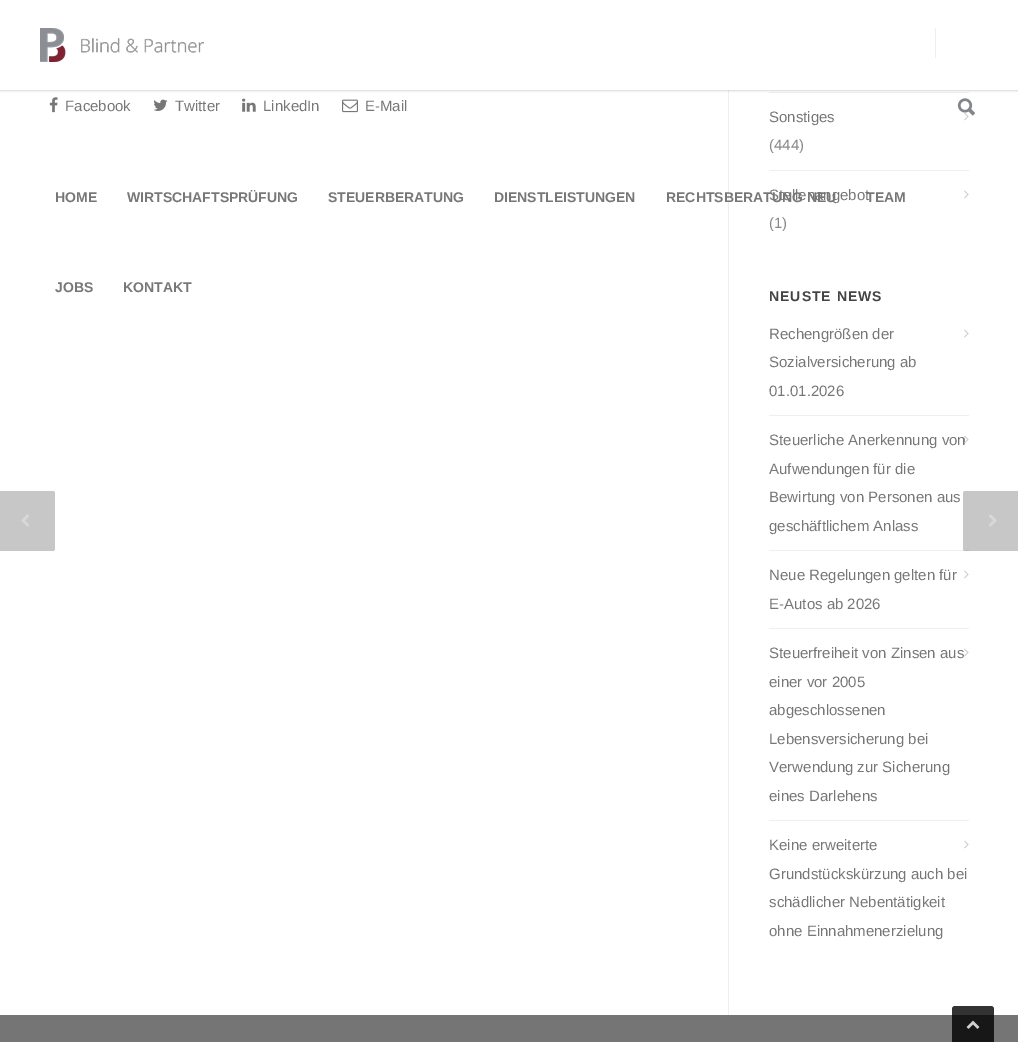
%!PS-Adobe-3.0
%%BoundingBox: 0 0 1018 1042
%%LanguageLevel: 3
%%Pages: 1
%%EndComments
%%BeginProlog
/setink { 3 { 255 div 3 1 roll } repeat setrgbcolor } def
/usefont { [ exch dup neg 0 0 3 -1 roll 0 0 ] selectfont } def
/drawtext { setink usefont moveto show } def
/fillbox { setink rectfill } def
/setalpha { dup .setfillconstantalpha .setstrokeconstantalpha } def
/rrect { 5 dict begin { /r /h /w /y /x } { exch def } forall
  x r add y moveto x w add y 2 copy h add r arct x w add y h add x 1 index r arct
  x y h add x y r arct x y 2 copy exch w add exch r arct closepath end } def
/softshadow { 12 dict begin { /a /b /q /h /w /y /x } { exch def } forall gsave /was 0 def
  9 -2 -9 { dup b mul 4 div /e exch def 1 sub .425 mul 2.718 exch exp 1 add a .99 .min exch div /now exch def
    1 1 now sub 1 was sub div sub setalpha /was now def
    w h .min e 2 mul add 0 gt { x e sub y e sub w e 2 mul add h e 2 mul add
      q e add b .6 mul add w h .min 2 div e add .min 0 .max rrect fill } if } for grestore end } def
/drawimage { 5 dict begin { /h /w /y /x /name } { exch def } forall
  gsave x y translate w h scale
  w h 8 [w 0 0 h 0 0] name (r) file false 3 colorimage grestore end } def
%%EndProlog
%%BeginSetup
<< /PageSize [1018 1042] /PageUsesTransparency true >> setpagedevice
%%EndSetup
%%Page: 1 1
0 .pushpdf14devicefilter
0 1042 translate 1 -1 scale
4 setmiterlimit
0 0 1018 1042 255 255 255 fillbox
(assets/img1.rgb) 49 97 9 16 drawimage
(Facebook) 65 111 /LiberationSans-Regular 15 119 119 119 drawtext
(assets/img2.rgb) 153 99 15 12 drawimage
(Twitter) 175 111 /LiberationSans-Regular 15 119 119 119 drawtext
(assets/img3.rgb) 242 98 14 14 drawimage
(LinkedIn) 263 111 /LiberationSans-Regular 15 119 119 119 drawtext
(assets/img4.rgb) 342 99 16 14 drawimage
(E-Mail) 365 111 /LiberationSans-Regular 15 119 119 119 drawtext
199 199 199 setink
-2 491 moveto 53 491 lineto 54 491 55 492 55 493 curveto 55 549 lineto 55 550 54 551 53 551 curveto -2 551 lineto closepath fill
(assets/img5.rgb) 21 514 8 13 drawimage
769 550 200 1 239 239 239 fillbox
0.3 setalpha
68 68 68 setink
965 491 moveto 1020 491 lineto 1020 551 lineto 965 551 lineto 964 551 963 550 963 549 curveto 963 493 lineto 963 492 964 491 965 491 curveto closepath fill
1 setalpha
(assets/img6.rgb) 989 514 8 13 drawimage
728 90 1 925 239 239 239 fillbox
769 92 200 1 239 239 239 fillbox
769 170 200 1 239 239 239 fillbox
(Sonstiges) 769 122 /LiberationSans-Regular 15 119 119 119 drawtext
(assets/img7.rgb) 964 112 5 9 drawimage
(\(444\)) 769 150 /LiberationSans-Regular 15 136 136 136 drawtext
(Stellenangebot) 769 200 /LiberationSans-Regular 15 119 119 119 drawtext
(assets/img7.rgb) 964 190 5 9 drawimage
(\(1\)) 769 228 /LiberationSans-Regular 15 136 136 136 drawtext
/LiberationSans-Bold 14 usefont
68 68 68 setink
769 301 moveto 1 0 (NEUSTE NEWS) ashow
769 415 200 1 239 239 239 fillbox
(Rechengrößen der) 769 339 /LiberationSans-Regular 15 119 119 119 drawtext
(Sozialversicherung ab) 769 367 /LiberationSans-Regular 15 119 119 119 drawtext
(01.01.2026) 769 396 /LiberationSans-Regular 15 119 119 119 drawtext
(assets/img7.rgb) 964 329 5 9 drawimage
(Steuerliche Anerkennung von) 769 445 /LiberationSans-Regular 15 119 119 119 drawtext
(Aufwendungen für die) 769 474 /LiberationSans-Regular 15 119 119 119 drawtext
(Bewirtung von Personen aus) 769 502 /LiberationSans-Regular 15 119 119 119 drawtext
(geschäftlichem Anlass) 769 531 /LiberationSans-Regular 15 119 119 119 drawtext
(assets/img8.rgb) 964 435 5 9 drawimage
769 628 200 1 239 239 239 fillbox
(Neue Regelungen gelten für) 769 580 /LiberationSans-Regular 15 119 119 119 drawtext
(E-Autos ab 2026) 769 609 /LiberationSans-Regular 15 119 119 119 drawtext
(assets/img7.rgb) 964 570 5 9 drawimage
769 820 200 1 239 239 239 fillbox
(Steuerfreiheit von Zinsen aus) 769 658 /LiberationSans-Regular 15 119 119 119 drawtext
(einer vor 2005) 769 687 /LiberationSans-Regular 15 119 119 119 drawtext
(abgeschlossenen) 769 715 /LiberationSans-Regular 15 119 119 119 drawtext
(Lebensversicherung bei) 769 744 /LiberationSans-Regular 15 119 119 119 drawtext
(Verwendung zur Sicherung) 769 772 /LiberationSans-Regular 15 119 119 119 drawtext
(eines Darlehens) 769 801 /LiberationSans-Regular 15 119 119 119 drawtext
(assets/img7.rgb) 964 648 5 9 drawimage
(Keine erweiterte) 769 850 /LiberationSans-Regular 15 119 119 119 drawtext
(Grundstückskürzung auch bei) 769 879 /LiberationSans-Regular 15 119 119 119 drawtext
(schädlicher Nebentätigkeit) 769 907 /LiberationSans-Regular 15 119 119 119 drawtext
(ohne Einnahmenerzielung) 769 936 /LiberationSans-Regular 15 119 119 119 drawtext
(assets/img7.rgb) 964 840 5 9 drawimage
0 0 0 setink
-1 -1 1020 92 0 1 0.16 softshadow
0 0 1018 90 255 255 255 fillbox
(assets/img9.rgb) 40 28 164 34 drawimage
935 28 1 30 239 239 239 fillbox
(assets/img10.rgb) 957 98 19 18 drawimage
(HOME) 55 202 /LiberationSans-Bold 14 119 119 119 drawtext
(WIRTSCHAFTSPRÜFUNG) 127 202 /LiberationSans-Bold 14 119 119 119 drawtext
(STEUERBERATUNG) 328 202 /LiberationSans-Bold 14 119 119 119 drawtext
(DIENSTLEISTUNGEN) 494 202 /LiberationSans-Bold 14 119 119 119 drawtext
(RECHTSBERATUNG NEU) 666 202 /LiberationSans-Bold 14 119 119 119 drawtext
(TEAM) 866 202 /LiberationSans-Bold 14 119 119 119 drawtext
(JOBS) 55 292 /LiberationSans-Bold 14 119 119 119 drawtext
(KONTAKT) 123 292 /LiberationSans-Bold 14 119 119 119 drawtext
0 1015 1018 27 117 117 117 fillbox
0.8 setalpha
0 0 0 setink
955 1006 moveto 991 1006 lineto 992.5 1006 994 1007.5 994 1009 curveto 994 1042 lineto 952 1042 lineto 952 1009 lineto 952 1007.5 953.5 1006 955 1006 curveto closepath fill
1 setalpha
(assets/img11.rgb) 966 1020 14 9 drawimage
.poppdf14devicefilter showpage
%%EOF
